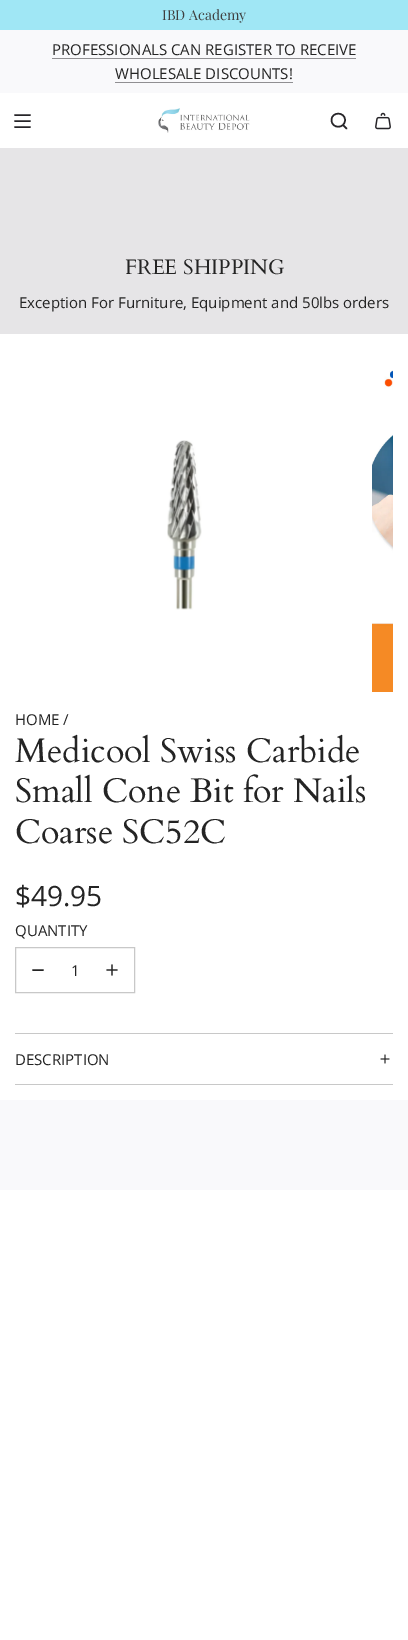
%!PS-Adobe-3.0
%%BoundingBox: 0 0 408 1640
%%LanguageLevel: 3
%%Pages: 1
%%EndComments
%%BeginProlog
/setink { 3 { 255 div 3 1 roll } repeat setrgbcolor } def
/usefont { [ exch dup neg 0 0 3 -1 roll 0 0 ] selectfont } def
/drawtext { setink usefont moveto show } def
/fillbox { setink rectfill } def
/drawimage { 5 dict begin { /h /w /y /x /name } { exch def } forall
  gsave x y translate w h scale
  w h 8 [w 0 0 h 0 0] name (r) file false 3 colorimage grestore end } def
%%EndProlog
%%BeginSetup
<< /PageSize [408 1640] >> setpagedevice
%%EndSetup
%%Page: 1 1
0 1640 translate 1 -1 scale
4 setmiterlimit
0 0 408 1640 255 255 255 fillbox
0 0 408 30 160 231 245 fillbox
(IBD Academy) 162 20 /PlayfairDisplay-Regular 14 63 63 63 drawtext
0 30 408 63 249 249 251 fillbox
(PROFESSIONALS CAN REGISTER TO RECEIVE) 52 55 /OpenSans-Regular 15 36 36 36 drawtext
52 58 304 1 144 143 146 fillbox
(WHOLESALE DISCOUNTS!) 115 79 /OpenSans-Regular 15 36 36 36 drawtext
115 82 178 1 144 143 146 fillbox
38 36 40 setink
1.5 setlinewidth
1 setlinecap
1 setlinejoin
15 115 moveto 30 115 lineto 15 121 moveto 30 121 lineto 15 127 moveto 30 127 lineto stroke
(assets/img1.rgb) 158 108 92 25 drawimage
343 125 moveto 346.5 128.5 lineto 331.5 120 moveto 331.5 129 345 129 345 120 curveto 345 111.5 331.5 111.5 331.5 120 curveto closepath stroke
(assets/img2.rgb) 375 112 16 18 drawimage
0 148 408 186 230 229 231 fillbox
(FREE SHIPPING) 125 274 /Cardo-Regular 21 36 36 36 drawtext
(Exception For Furniture, Equipment and 50lbs orders) 19 308 /OpenSans-Regular 15 36 36 36 drawtext
(assets/img3.rgb) 167 440 35 170 drawimage
(assets/img4.rgb) 372 370 21 322 drawimage
(HOME /) 15 725 /OpenSans-Regular 15 36 36 36 drawtext
(Medicool Swiss Carbide) 15 762 /Cardo-Regular 34 36 36 36 drawtext
(Small Cone Bit for Nails) 15 802 /Cardo-Regular 34 36 36 36 drawtext
(Coarse SC52C) 15 843 /Cardo-Regular 34 36 36 36 drawtext
($49.95) 15 906 /OpenSans-Regular 28 36 36 36 drawtext
(QUANTITY) 15 936 /OpenSans-Regular 15 36 36 36 drawtext
200 200 200 setink
1 setlinewidth
0 setlinecap
0 setlinejoin
15.5 947.5 119 45 rectstroke
36 36 36 setink
1.5 setlinewidth
1 setlinecap
1 setlinejoin
33 970 moveto 43 970 lineto stroke
(1) 71 976 /OpenSans-Regular 15 36 36 36 drawtext
(assets/img5.rgb) 106 964 12 12 drawimage
15 1033 378 1 200 200 200 fillbox
15 1084 378 1 200 200 200 fillbox
(DESCRIPTION) 15 1065 /OpenSans-Regular 15 36 36 36 drawtext
(assets/img6.rgb) 380 1054 10 10 drawimage
0 1100 408 90 249 249 251 fillbox
showpage
%%EOF
